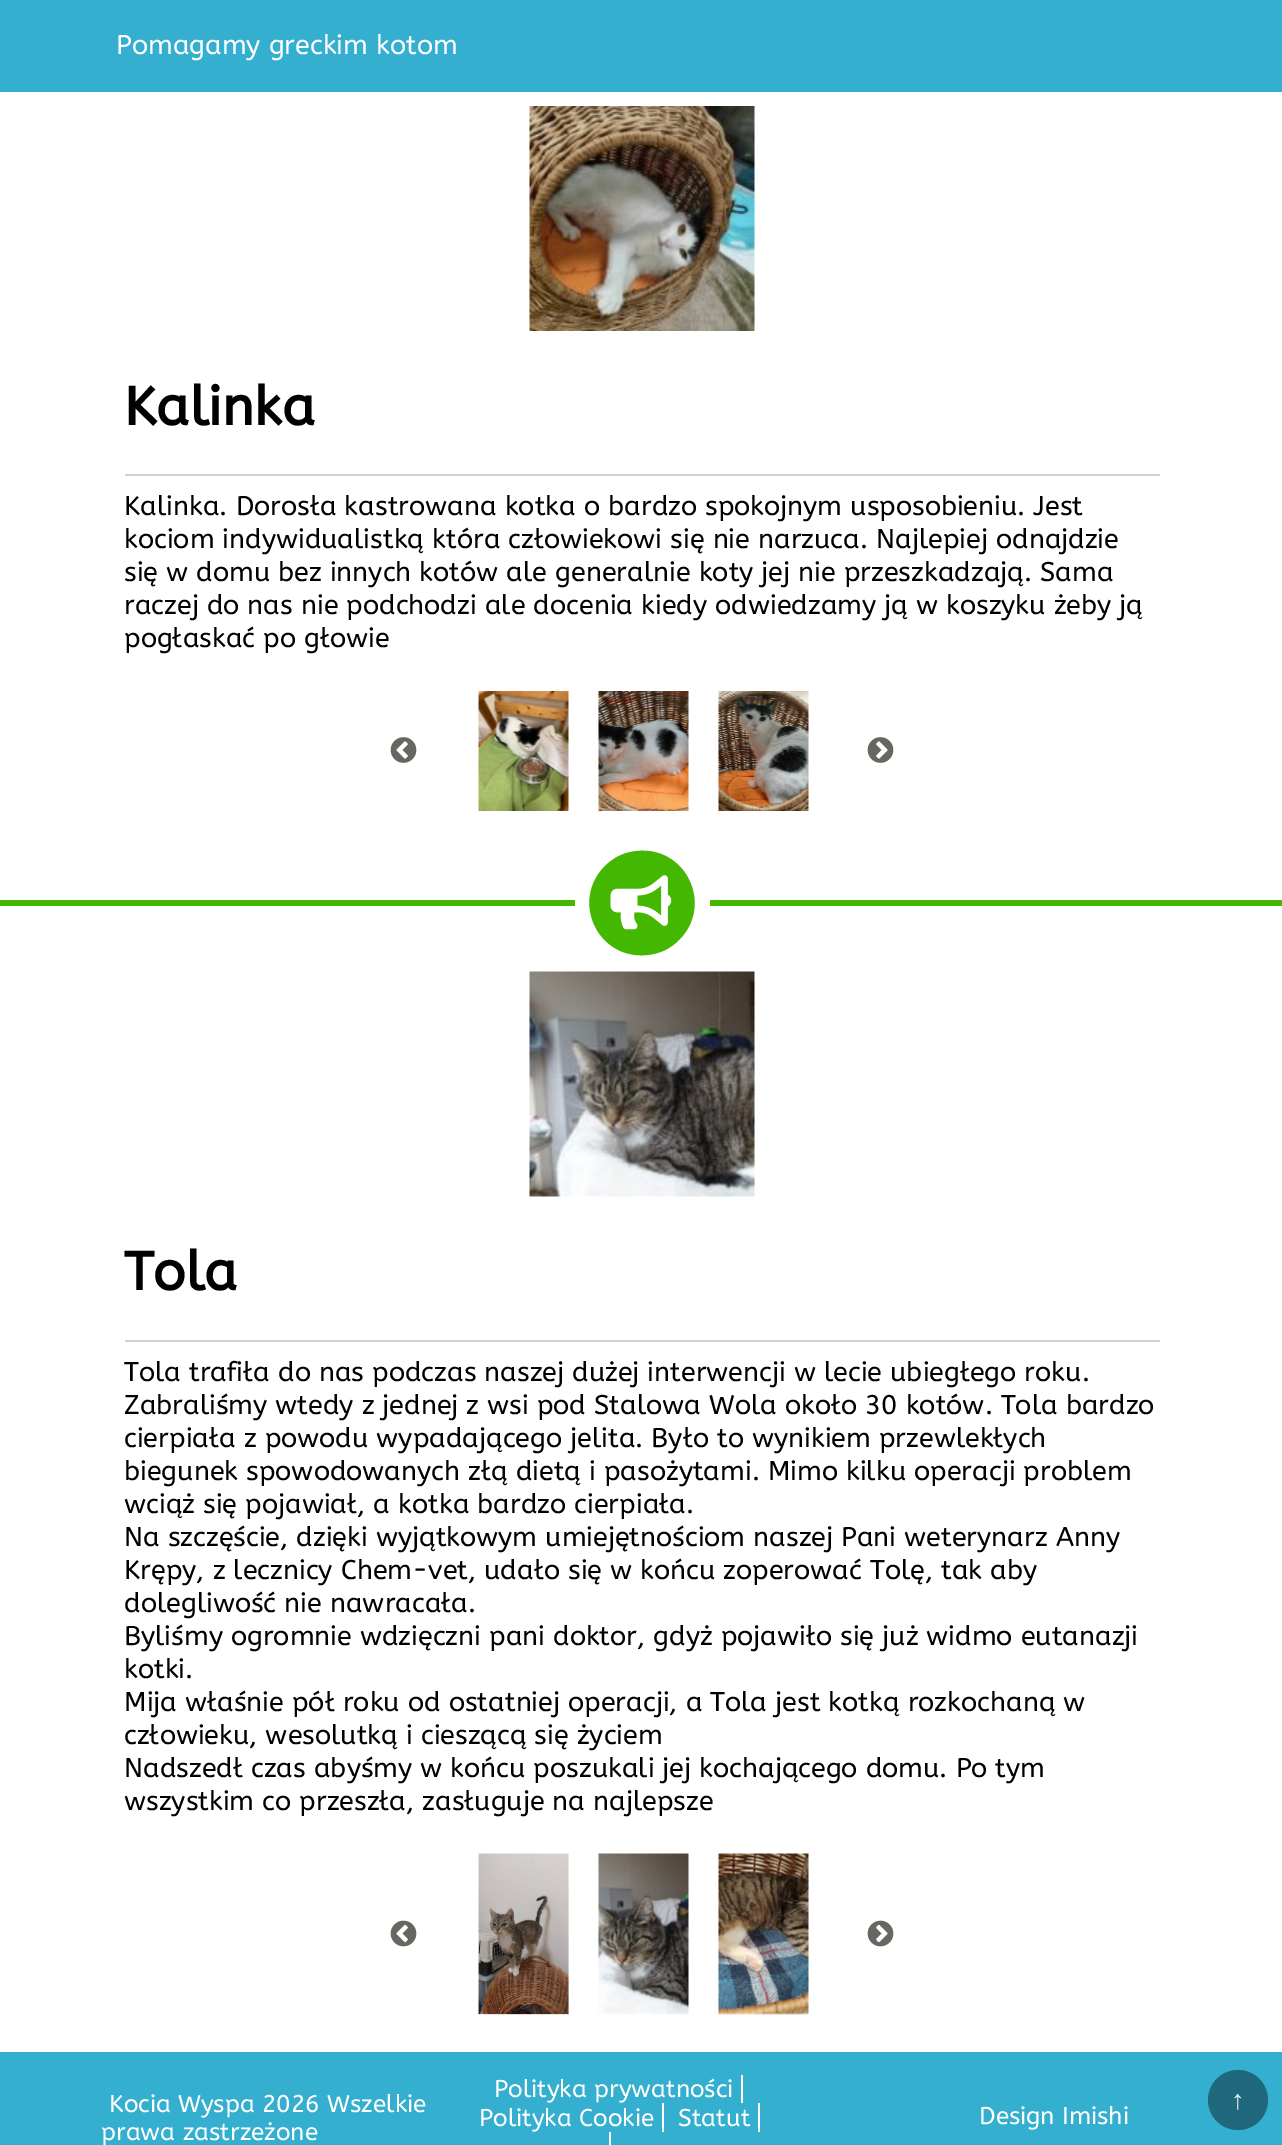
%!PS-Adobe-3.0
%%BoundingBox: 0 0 1282 2145
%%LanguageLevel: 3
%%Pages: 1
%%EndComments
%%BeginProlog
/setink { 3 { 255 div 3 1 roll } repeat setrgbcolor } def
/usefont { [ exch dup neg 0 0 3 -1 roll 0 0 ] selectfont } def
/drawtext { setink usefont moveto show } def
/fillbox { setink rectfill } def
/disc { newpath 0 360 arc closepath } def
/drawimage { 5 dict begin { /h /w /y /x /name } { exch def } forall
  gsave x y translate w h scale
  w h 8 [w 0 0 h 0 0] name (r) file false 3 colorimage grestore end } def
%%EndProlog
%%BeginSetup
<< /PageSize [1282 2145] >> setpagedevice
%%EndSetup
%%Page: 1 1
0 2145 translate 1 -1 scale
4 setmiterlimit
0 0 1282 2145 255 255 255 fillbox
0 0 1282 92 53 175 208 fillbox
(Pomagamy greckim kotom) 116 54 /ABeeZee-Regular 27 255 255 255 drawtext
(assets/img1.rgb) 529 106 226 225 drawimage
(Kalinka) 124 425 /ABeeZee-Bold 54 0 0 0 drawtext
125 474 1035 2 211 211 211 fillbox
(Kalinka. Dorosła kastrowana kotka o bardzo spokojnym usposobieniu. Jest) 124 515 /ABeeZee-Regular 27 0 0 0 drawtext
(kociom indywidualistką która człowiekowi się nie narzuca. Najlepiej odnajdzie) 124 548 /ABeeZee-Regular 27 0 0 0 drawtext
(się w domu bez innych kotów ale generalnie koty jej nie przeszkadzają. Sama) 124 581 /ABeeZee-Regular 27 0 0 0 drawtext
(raczej do nas nie podchodzi ale docenia kiedy odwiedzamy ją w koszyku żeby ją) 124 614 /ABeeZee-Regular 27 0 0 0 drawtext
(pogłaskać po głowie) 124 647 /ABeeZee-Regular 27 0 0 0 drawtext
(assets/img2.rgb) 390 737 27 26 drawimage
(assets/img3.rgb) 478 691 91 120 drawimage
(assets/img4.rgb) 598 691 91 120 drawimage
(assets/img5.rgb) 718 691 91 120 drawimage
(assets/img6.rgb) 867 737 27 26 drawimage
0 900 575 6 68 184 0 fillbox
605 866 moveto 614 857 625 852 637 851 curveto 686 846 714 905 679 940 curveto 670 949 659 954 647 955 curveto 598 960 570 901 605 866 curveto closepath fill
(assets/img7.rgb) 610 875 62 55 drawimage
710 900 572 6 68 184 0 fillbox
(assets/img8.rgb) 529 971 226 226 drawimage
(Tola) 124 1290 /ABeeZee-Bold 54 0 0 0 drawtext
125 1340 1035 2 211 211 211 fillbox
(Tola trafiła do nas podczas naszej dużej interwencji w lecie ubiegłego roku.) 124 1381 /ABeeZee-Regular 27 0 0 0 drawtext
(Zabraliśmy wtedy z jednej z wsi pod Stalowa Wola około 30 kotów. Tola bardzo) 124 1414 /ABeeZee-Regular 27 0 0 0 drawtext
(cierpiała z powodu wypadającego jelita. Było to wynikiem przewlekłych) 124 1447 /ABeeZee-Regular 27 0 0 0 drawtext
(biegunek spowodowanych złą dietą i pasożytami. Mimo kilku operacji problem) 124 1480 /ABeeZee-Regular 27 0 0 0 drawtext
(wciąż się pojawiał, a kotka bardzo cierpiała.) 124 1513 /ABeeZee-Regular 27 0 0 0 drawtext
(Na szczęście, dzięki wyjątkowym umiejętnościom naszej Pani weterynarz Anny) 124 1546 /ABeeZee-Regular 27 0 0 0 drawtext
(Krępy, z lecznicy Chem-vet, udało się w końcu zoperować Tolę, tak aby) 124 1579 /ABeeZee-Regular 27 0 0 0 drawtext
(dolegliwość nie nawracała.) 124 1612 /ABeeZee-Regular 27 0 0 0 drawtext
(Byliśmy ogromnie wdzięczni pani doktor, gdyż pojawiło się już widmo eutanazji) 124 1645 /ABeeZee-Regular 27 0 0 0 drawtext
(kotki.) 124 1678 /ABeeZee-Regular 27 0 0 0 drawtext
(Mija właśnie pół roku od ostatniej operacji, a Tola jest kotką rozkochaną w) 124 1711 /ABeeZee-Regular 27 0 0 0 drawtext
(człowieku, wesolutką i cieszącą się życiem) 124 1744 /ABeeZee-Regular 27 0 0 0 drawtext
(Nadszedł czas abyśmy w końcu poszukali jej kochającego domu. Po tym) 124 1777 /ABeeZee-Regular 27 0 0 0 drawtext
(wszystkim co przeszła, zasługuje na najlepsze) 124 1810 /ABeeZee-Regular 27 0 0 0 drawtext
(assets/img9.rgb) 390 1920 27 27 drawimage
(assets/img10.rgb) 478 1853 91 162 drawimage
(assets/img11.rgb) 598 1853 91 162 drawimage
(assets/img12.rgb) 718 1853 91 162 drawimage
(assets/img13.rgb) 867 1920 27 27 drawimage
0 2052 1282 93 53 175 208 fillbox
(Kocia Wyspa 2026 Wszelkie) 109 2112 /ABeeZee-Regular 24.25 255 255 255 drawtext
(prawa zastrzeżone) 101 2140 /ABeeZee-Regular 24.25 255 255 255 drawtext
741 2075 2 28 255 255 255 fillbox
(Polityka prywatności) 494 2097 /ABeeZee-Regular 24.25 255 255 255 drawtext
662 2103 2 29 255 255 255 fillbox
(Polityka Cookie) 479 2126 /ABeeZee-Regular 24.25 255 255 255 drawtext
758 2103 2 29 255 255 255 fillbox
(Statut) 678 2126 /ABeeZee-Regular 24.25 255 255 255 drawtext
609 2132 2 13 255 255 255 fillbox
(Design Imishi) 979 2124 /ABeeZee-Regular 24.25 255 255 255 drawtext
32 105 125 setink
1238 2100 30 disc fill
(↑) 1231 2109 /LiberationSans-Regular 27 255 255 255 drawtext
showpage
%%EOF
